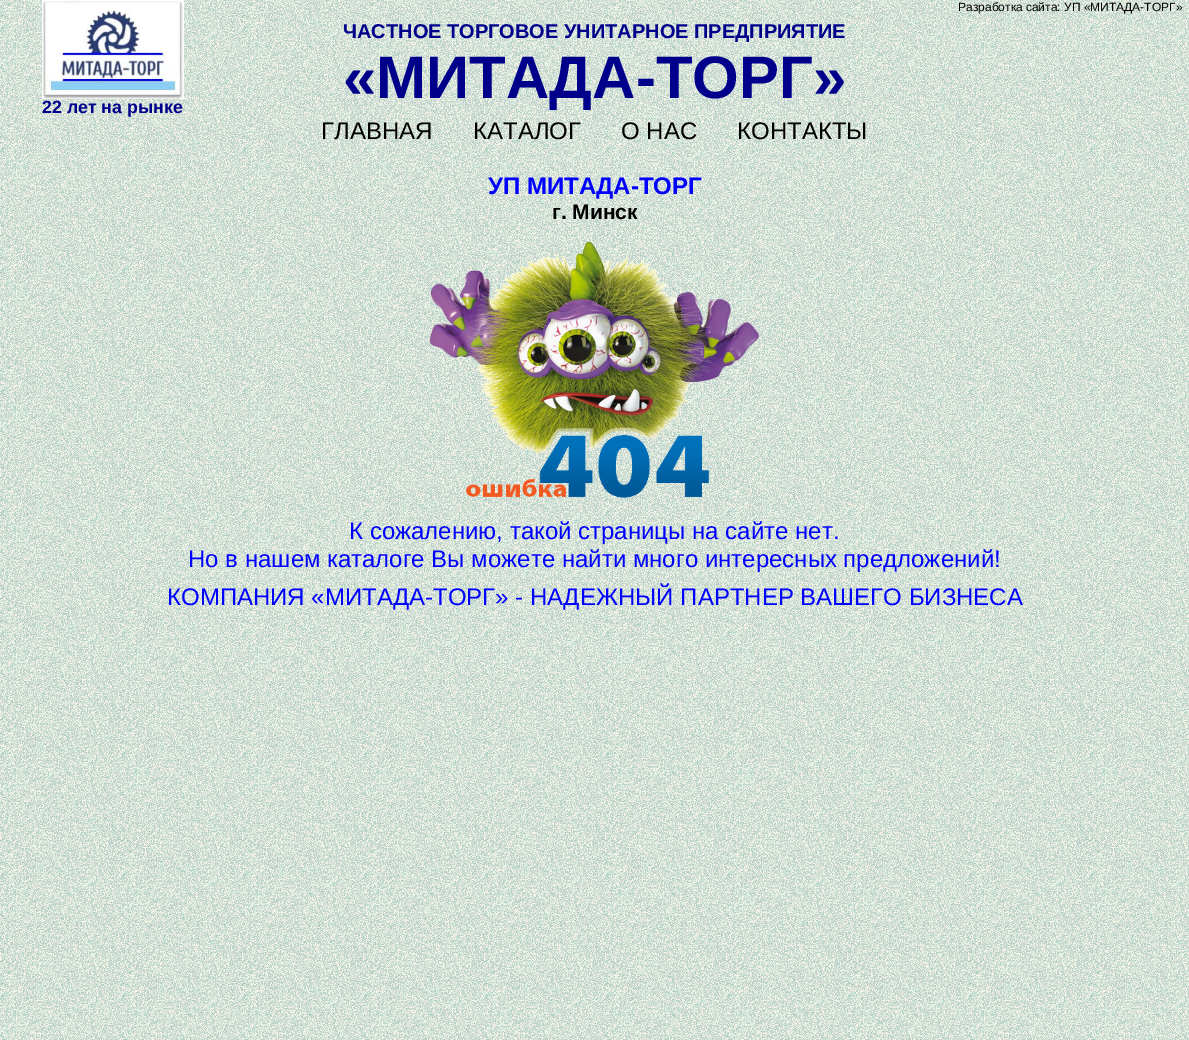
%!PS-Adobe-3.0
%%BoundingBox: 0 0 1189 1040
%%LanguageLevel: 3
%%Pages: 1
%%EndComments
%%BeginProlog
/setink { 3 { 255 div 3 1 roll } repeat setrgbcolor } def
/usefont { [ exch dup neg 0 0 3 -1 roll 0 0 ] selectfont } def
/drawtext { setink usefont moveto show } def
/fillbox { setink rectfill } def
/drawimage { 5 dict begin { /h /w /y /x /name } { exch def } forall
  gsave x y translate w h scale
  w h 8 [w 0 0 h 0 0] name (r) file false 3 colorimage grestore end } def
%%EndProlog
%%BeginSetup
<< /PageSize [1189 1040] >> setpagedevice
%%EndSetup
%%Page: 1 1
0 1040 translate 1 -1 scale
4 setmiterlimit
0 0 1189 1040 255 255 255 fillbox
(assets/img1.rgb) 0 0 1189 1040 drawimage
(assets/img2.rgb) 42 0 142 99 drawimage
(22 лет на рынке) 42 113 /LiberationSans-Bold 17.75 0 0 139 drawtext
(Разработка сайта: УП «МИТАДА-ТОРГ») 958 11 /LiberationSans-Regular 12 0 0 0 drawtext
(ЧАСТНОЕ ТОРГОВОЕ УНИТАРНОЕ ПРЕДПРИЯТИЕ) 343 38 /LiberationSans-Bold 20 0 0 139 drawtext
(«МИТАДА-ТОРГ») 343 98 /LiberationSans-Bold 60 0 0 139 drawtext
(ГЛАВНАЯ) 321 139 /LiberationSans-Regular 24 0 0 0 drawtext
(КАТАЛОГ) 473 139 /LiberationSans-Regular 24 0 0 0 drawtext
(О НАС) 621 139 /LiberationSans-Regular 24 0 0 0 drawtext
(КОНТАКТЫ) 737 139 /LiberationSans-Regular 24 0 0 0 drawtext
(УП МИТАДА-ТОРГ) 488 194 /LiberationSans-Bold 24 0 0 255 drawtext
(г. Минск) 552 219 /LiberationSans-Bold 21 0 0 0 drawtext
(assets/img3.rgb) 429 241 331 257 drawimage
(К сожалению, такой страницы на сайте нет.) 349 539 /LiberationSans-Regular 24 0 0 255 drawtext
(Но в нашем каталоге Вы можете найти много интересных предложений!) 188 567 /LiberationSans-Regular 24 0 0 255 drawtext
(КОМПАНИЯ «МИТАДА-ТОРГ» - НАДЕЖНЫЙ ПАРТНЕР ВАШЕГО БИЗНЕСА) 167 605 /LiberationSans-Regular 24 0 0 255 drawtext
showpage
%%EOF
